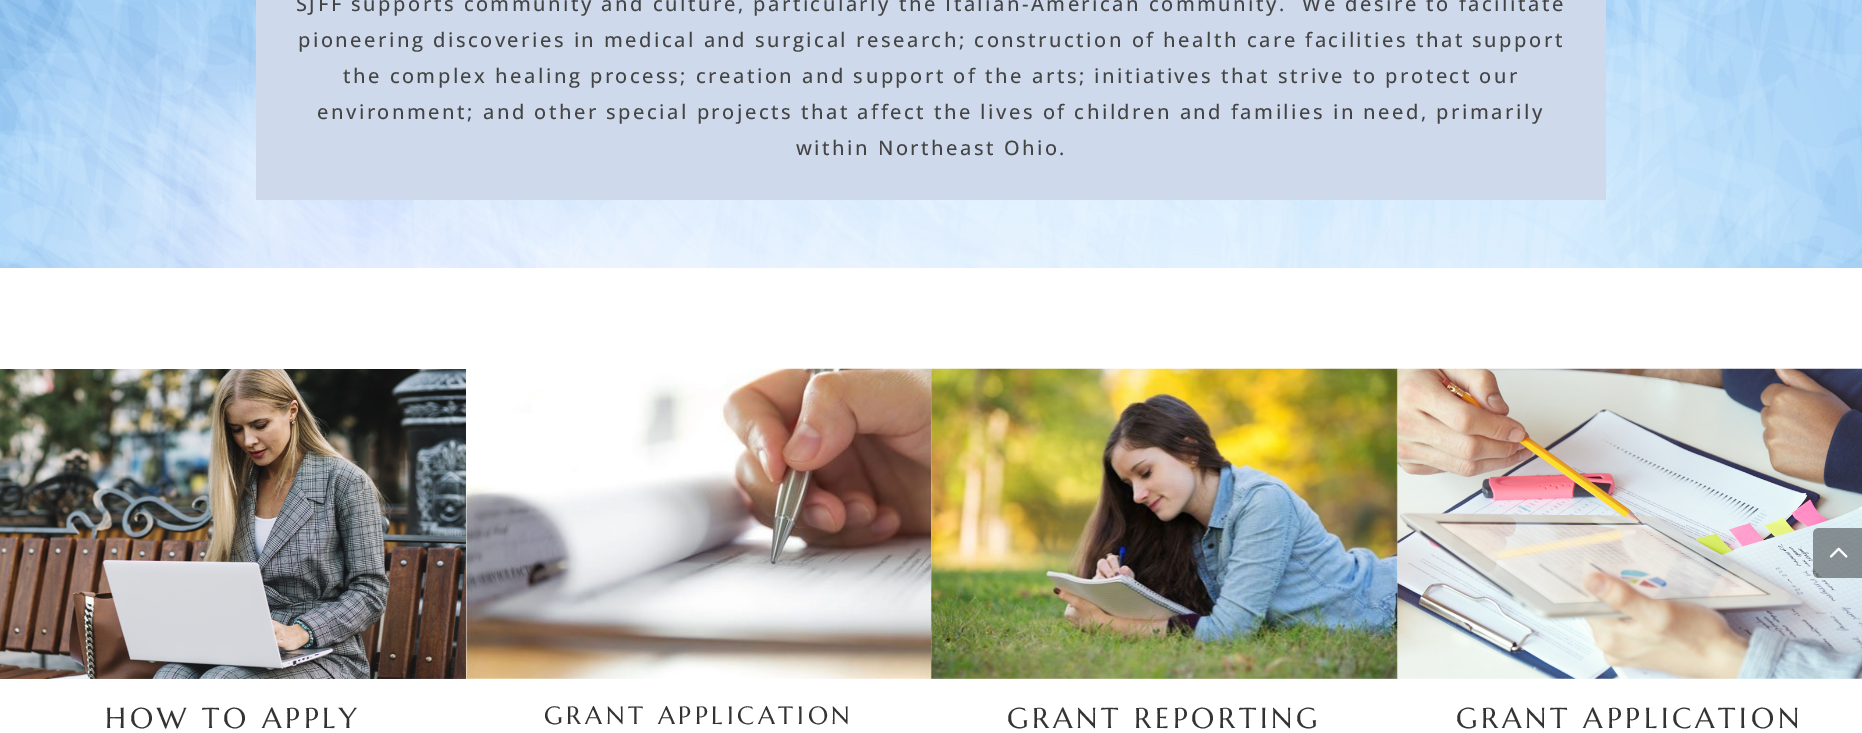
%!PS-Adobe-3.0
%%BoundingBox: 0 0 1862 733
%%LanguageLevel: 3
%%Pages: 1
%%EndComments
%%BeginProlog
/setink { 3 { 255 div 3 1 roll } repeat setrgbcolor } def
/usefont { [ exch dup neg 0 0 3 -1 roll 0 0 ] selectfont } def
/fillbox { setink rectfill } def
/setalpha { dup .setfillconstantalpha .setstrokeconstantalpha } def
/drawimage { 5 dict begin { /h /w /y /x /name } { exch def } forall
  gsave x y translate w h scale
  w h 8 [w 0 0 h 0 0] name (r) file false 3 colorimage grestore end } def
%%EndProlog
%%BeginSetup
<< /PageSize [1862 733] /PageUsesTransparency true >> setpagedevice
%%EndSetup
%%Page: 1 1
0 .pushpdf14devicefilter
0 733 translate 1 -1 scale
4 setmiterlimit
0 0 1862 733 255 255 255 fillbox
(assets/img1.rgb) 0 0 1862 268 drawimage
256 0 1350 200 207 217 236 fillbox
/OpenSans-Medium 20 usefont
68 68 68 setink
296 11 moveto 2.5 0 (SJFF supports community and culture, particularly the Italian-American community.  We desire to facilitate) ashow
298 47 moveto 2.5 0 (pioneering discoveries in medical and surgical research; construction of health care facilities that support) ashow
343 83 moveto 2.5 0 (the complex healing process; creation and support of the arts; initiatives that strive to protect our) ashow
317 119 moveto 2.5 0 (environment; and other special projects that affect the lives of children and families in need, primarily) ashow
796 155 moveto 2.5 0 (within Northeast Ohio.) ashow
(assets/img2.rgb) 0 369 466 310 drawimage
/MarcellusSC-Regular 28.75 usefont
51 51 51 setink
105 728 moveto 3.75 0 (HOW TO APPLY) ashow
(assets/img3.rgb) 466 368 466 311 drawimage
/MarcellusSC-Regular 25 usefont
544 724 moveto 3.75 0 (GRANT APPLICATION) ashow
(assets/img4.rgb) 931 368 467 311 drawimage
/MarcellusSC-Regular 28.75 usefont
1007 728 moveto 3.75 0 (GRANT REPORTING) ashow
(assets/img5.rgb) 1397 368 465 311 drawimage
1456 728 moveto 3.75 0 (GRANT APPLICATION) ashow
0.4 setalpha
0 0 0 setink
1819 528 moveto 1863 528 lineto 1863 578 lineto 1819 578 lineto 1815.5 578 1813 575.5 1813 572 curveto 1813 534 lineto 1813 530.5 1815.5 528 1819 528 curveto closepath fill
1 setalpha
(assets/img6.rgb) 1829 547 19 11 drawimage
.poppdf14devicefilter showpage
%%EOF
